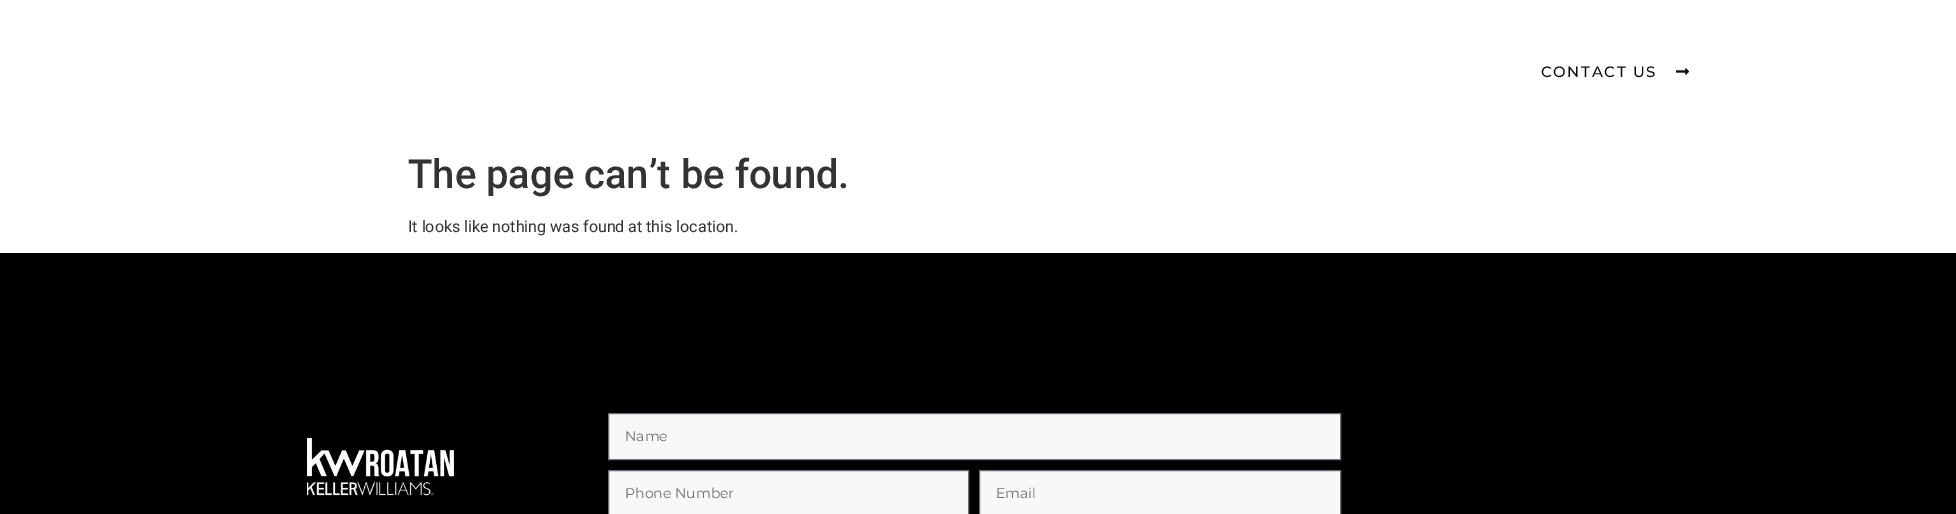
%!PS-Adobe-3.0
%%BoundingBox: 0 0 1956 514
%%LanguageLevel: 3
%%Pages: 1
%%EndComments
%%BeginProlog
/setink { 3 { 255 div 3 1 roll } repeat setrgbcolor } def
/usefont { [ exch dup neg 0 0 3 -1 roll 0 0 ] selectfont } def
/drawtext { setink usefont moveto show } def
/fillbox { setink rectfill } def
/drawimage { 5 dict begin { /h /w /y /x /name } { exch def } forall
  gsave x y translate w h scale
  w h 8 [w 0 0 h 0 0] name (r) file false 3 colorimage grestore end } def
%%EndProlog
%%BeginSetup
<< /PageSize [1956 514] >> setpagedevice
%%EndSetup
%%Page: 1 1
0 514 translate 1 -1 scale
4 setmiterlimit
0 0 1956 514 255 255 255 fillbox
/Montserrat-Medium 15 usefont
14 14 14 setink
1541 77 moveto 1.6 0 (CONTACT US) ashow
(assets/img1.rgb) 1675 68 14 7 drawimage
(The page can’t be found.) 408 188 /Roboto-Medium 40 51 51 51 drawtext
(It looks like nothing was found at this location.) 408 232 /Roboto-Regular 16 51 51 51 drawtext
0 253 1956 261 0 0 0 fillbox
(assets/img2.rgb) 307 438 147 58 drawimage
248 248 248 setink
608.5 413.5 moveto 1340.5 413.5 lineto 1340.5 459.5 lineto 608.5 459.5 lineto closepath gsave fill grestore
105 114 125 setink
stroke
(Name) 625 441 /Montserrat-Regular 14 111 111 111 drawtext
248 248 248 setink
608.5 470.5 moveto 968.5 470.5 lineto 968.5 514.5 lineto 608.5 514.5 lineto closepath gsave fill grestore
105 114 125 setink
stroke
(Phone Number) 625 498 /Montserrat-Regular 14 111 111 111 drawtext
248 248 248 setink
979.5 470.5 moveto 1340.5 470.5 lineto 1340.5 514.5 lineto 979.5 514.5 lineto closepath gsave fill grestore
105 114 125 setink
stroke
(Email) 996 498 /Montserrat-Regular 14 111 111 111 drawtext
showpage
%%EOF
